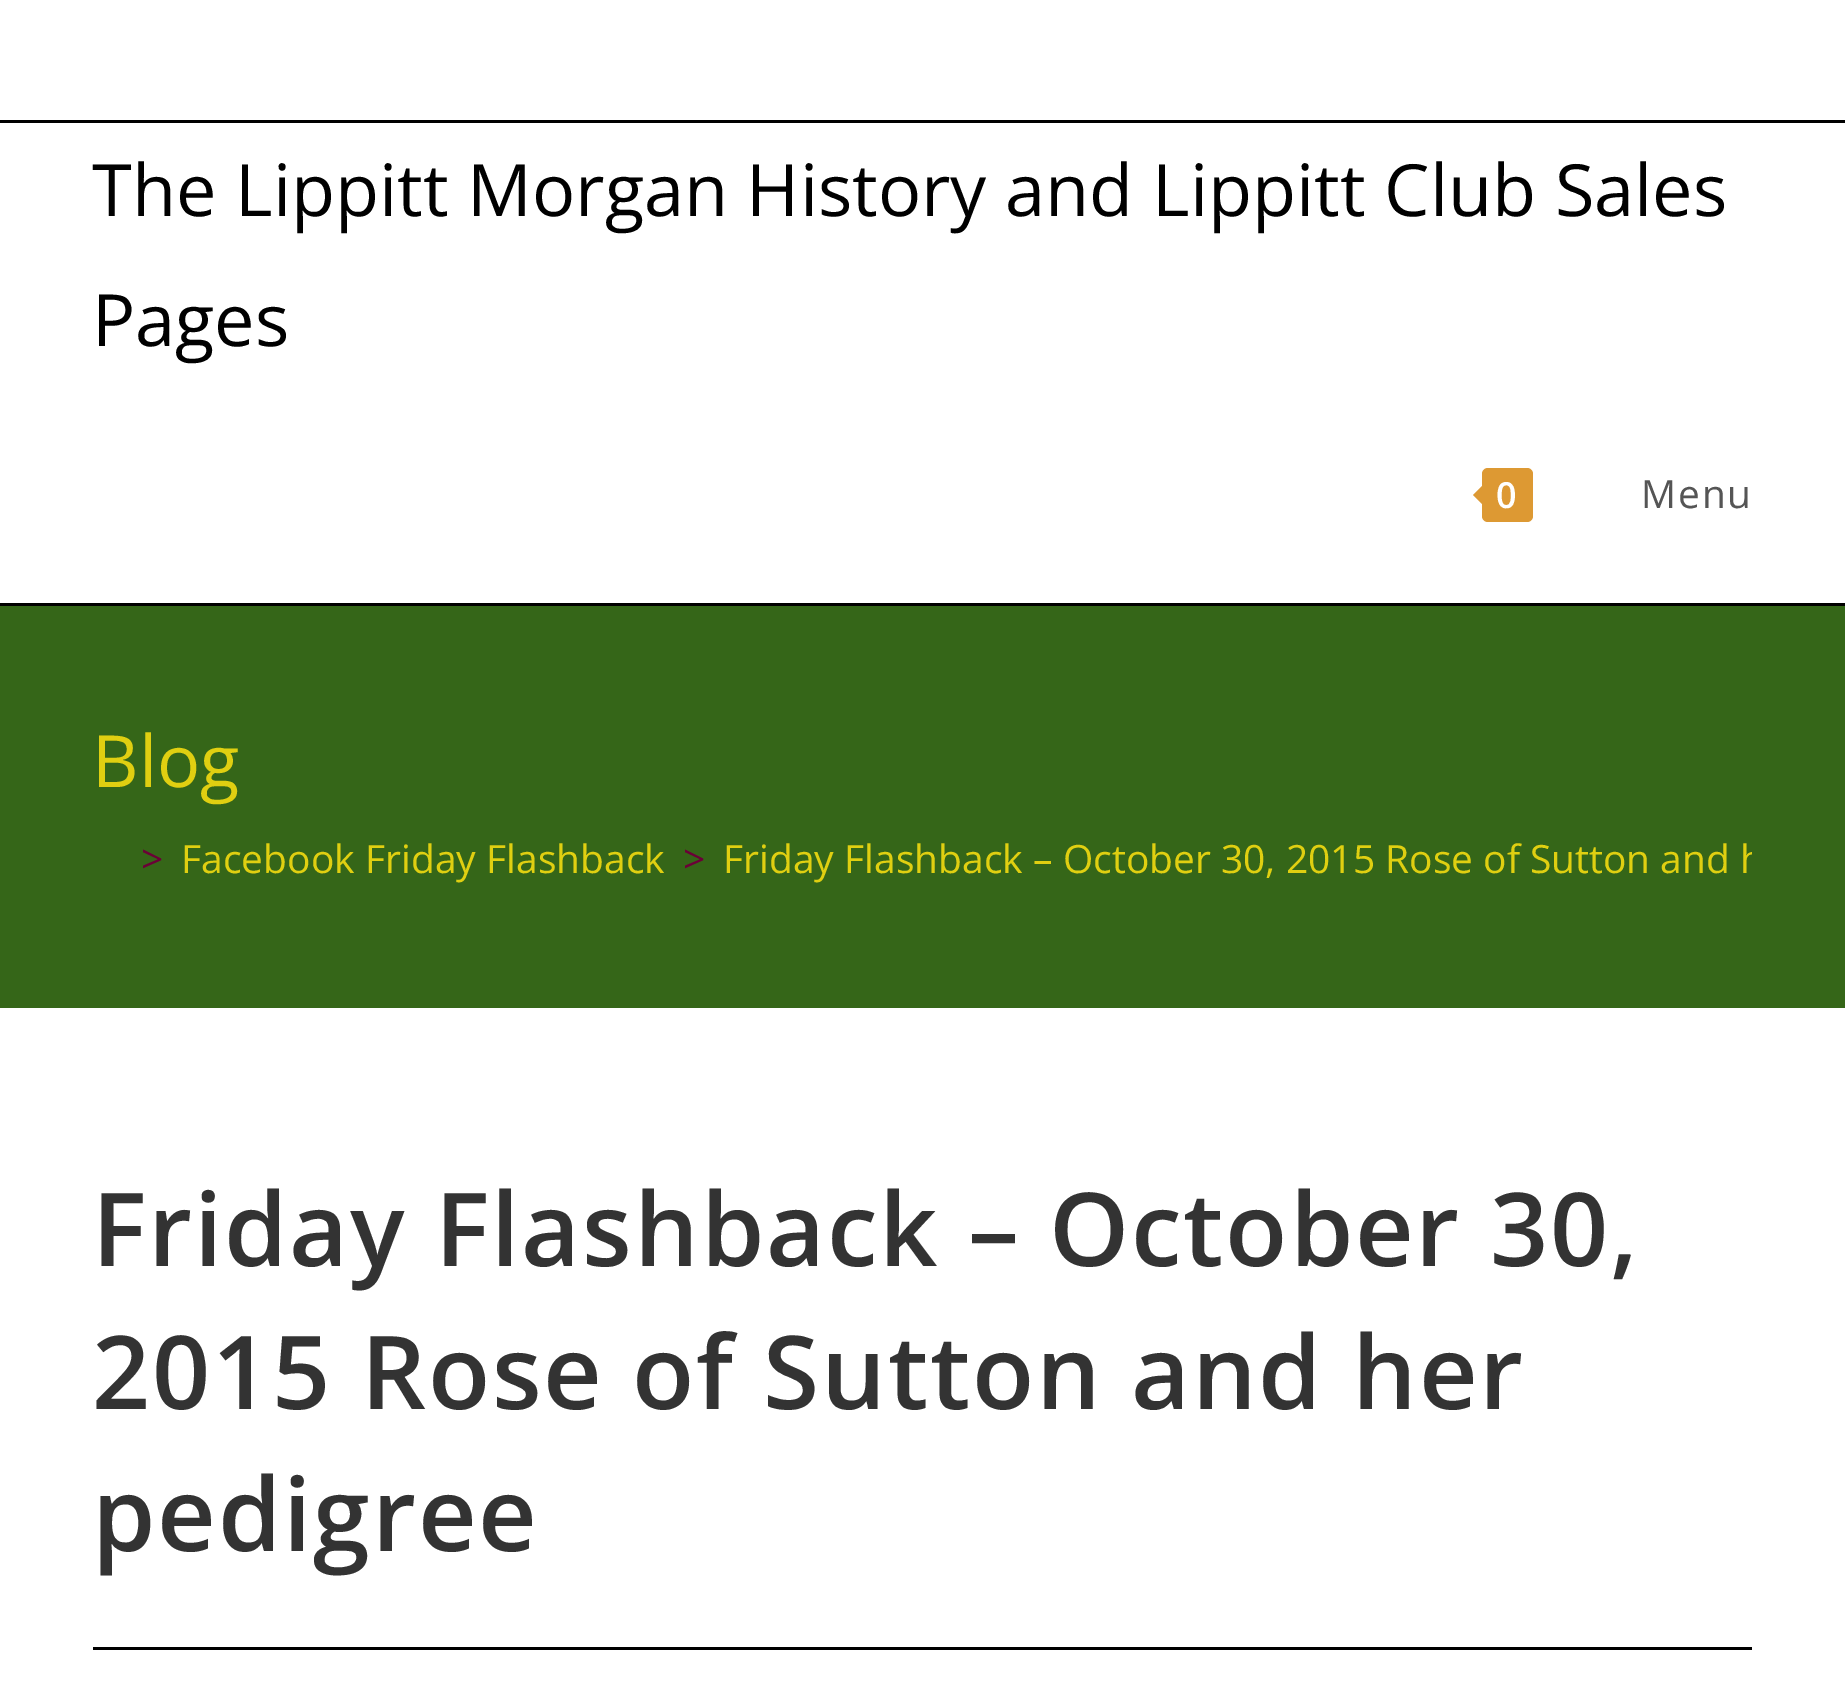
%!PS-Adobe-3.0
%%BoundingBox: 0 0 1845 1688
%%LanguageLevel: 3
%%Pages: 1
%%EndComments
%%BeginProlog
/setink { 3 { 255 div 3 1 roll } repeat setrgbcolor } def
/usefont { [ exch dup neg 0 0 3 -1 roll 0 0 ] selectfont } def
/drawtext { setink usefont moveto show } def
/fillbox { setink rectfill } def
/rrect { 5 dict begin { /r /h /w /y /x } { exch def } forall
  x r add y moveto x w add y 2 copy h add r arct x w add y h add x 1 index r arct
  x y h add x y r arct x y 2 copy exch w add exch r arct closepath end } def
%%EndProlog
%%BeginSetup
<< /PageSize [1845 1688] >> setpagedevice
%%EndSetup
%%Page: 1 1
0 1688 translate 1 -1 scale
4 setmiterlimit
0 0 1845 1688 255 255 255 fillbox
0 120 1845 3 0 0 0 fillbox
0 603 1845 3 0 0 0 fillbox
(The Lippitt Morgan History and Lippitt Club Sales) 92 216 /OpenSans-Regular 72 0 0 0 drawtext
(Pages) 92 346 /OpenSans-Regular 72 0 0 0 drawtext
221 153 51 setink
1482 468 51 54 6 rrect fill
1488 480 moveto 1488 510 lineto 1473 495 lineto closepath fill
/OpenSans-SemiBold 36 usefont
255 255 255 setink
1496 508 moveto 1.8 0 (0) ashow
/OpenSans-Regular 39 usefont
85 85 85 setink
1641 508 moveto 1.8 0 (Menu) ashow
0 606 1845 402 53 102 24 fillbox
(Blog) 92 787 /OpenSans-Regular 72 224 207 17 drawtext
(>) 141 873 /OpenSans-Regular 39 107 0 55 drawtext
(Facebook Friday Flashback) 181 873 /OpenSans-Regular 39 224 207 17 drawtext
(>) 683 873 /OpenSans-Regular 39 107 0 55 drawtext
gsave
93 810 1659 96 rectclip
(Friday Flashback – October 30, 2015 Rose of Sutton and h) 723 873 /OpenSans-Regular 39 224 207 17 drawtext
grestore
93 1647 1659 3 0 0 0 fillbox
/OpenSans-SemiBold 102 usefont
51 51 51 setink
92 1266 moveto 1.8 0 (Friday Flashback – October 30,) ashow
92 1409 moveto 1.8 0 (2015 Rose of Sutton and her) ashow
92 1551 moveto 1.8 0 (pedigree) ashow
showpage
%%EOF
